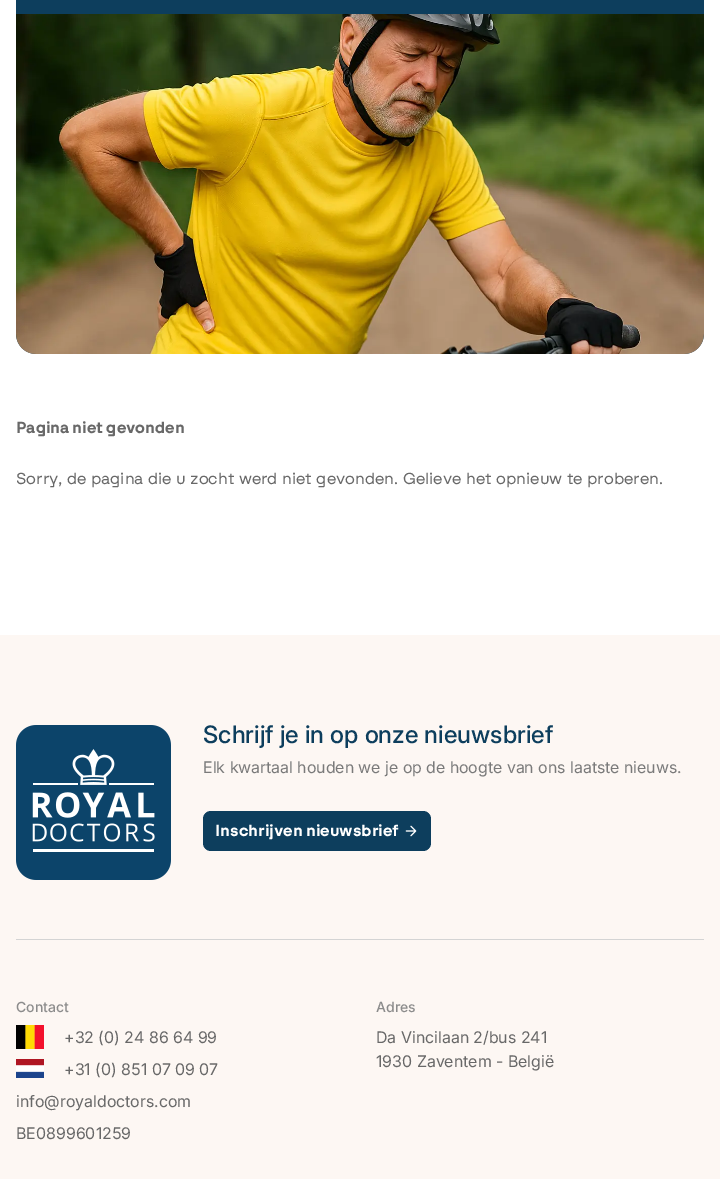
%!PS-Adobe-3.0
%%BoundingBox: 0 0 720 1179
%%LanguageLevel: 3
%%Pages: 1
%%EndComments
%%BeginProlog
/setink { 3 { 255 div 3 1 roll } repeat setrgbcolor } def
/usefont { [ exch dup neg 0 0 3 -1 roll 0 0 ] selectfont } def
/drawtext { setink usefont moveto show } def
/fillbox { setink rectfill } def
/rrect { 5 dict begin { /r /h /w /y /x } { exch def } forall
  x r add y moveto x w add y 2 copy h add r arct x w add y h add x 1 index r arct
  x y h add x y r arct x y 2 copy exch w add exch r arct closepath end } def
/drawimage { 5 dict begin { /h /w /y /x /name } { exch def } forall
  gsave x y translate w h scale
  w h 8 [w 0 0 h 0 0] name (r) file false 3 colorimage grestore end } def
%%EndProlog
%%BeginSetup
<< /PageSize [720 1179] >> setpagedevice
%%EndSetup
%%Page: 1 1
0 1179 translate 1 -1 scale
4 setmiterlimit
0 0 720 1179 255 255 255 fillbox
13 62 93 setink
16 -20 688 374 20 rrect fill
(assets/img1.rgb) 16 14 688 340 drawimage
(Pagina niet gevonden) 16 433 /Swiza-SemiBold 16 104 104 104 drawtext
(Sorry, de pagina die u zocht werd niet gevonden. Gelieve het opnieuw te proberen.) 16 484 /Swiza-Regular 16 104 104 104 drawtext
0 635 720 544 253 247 243 fillbox
16 939 688 1 212 212 212 fillbox
(assets/img2.rgb) 16 725 155 155 drawimage
(Schrijf je in op onze nieuwsbrief) 203 743 /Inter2-Medium 24 13 62 93 drawtext
(Elk kwartaal houden we je op de hoogte van ons laatste nieuws.) 203 773 /Inter-Regular 16 122 122 122 drawtext
13 62 93 setink
203 811 228 40 8 rrect fill
(Inschrijven nieuwsbrief) 215 836 /Swiza-SemiBold 16 255 255 255 drawtext
(assets/img3.rgb) 405 825 12 12 drawimage
(Contact) 16 1012 /Inter-Medium 14 140 140 140 drawtext
(assets/img4.rgb) 16 1025 28 24 drawimage
(+32 \(0\) 24 86 64 99) 64 1043 /Inter-Regular 16 104 104 104 drawtext
(assets/img5.rgb) 16 1059 28 19 drawimage
(+31 \(0\) 851 07 09 07) 64 1075 /Inter-Regular 16 104 104 104 drawtext
(info@royaldoctors.com) 16 1107 /Inter-Regular 16 104 104 104 drawtext
(BE0899601259) 16 1139 /Inter-Regular 16 104 104 104 drawtext
(Adres) 376 1012 /Inter-Medium 14 140 140 140 drawtext
(Da Vincilaan 2/bus 241) 376 1043 /Inter-Regular 16 104 104 104 drawtext
(1930 Zaventem - België) 376 1067 /Inter-Regular 16 104 104 104 drawtext
showpage
%%EOF
